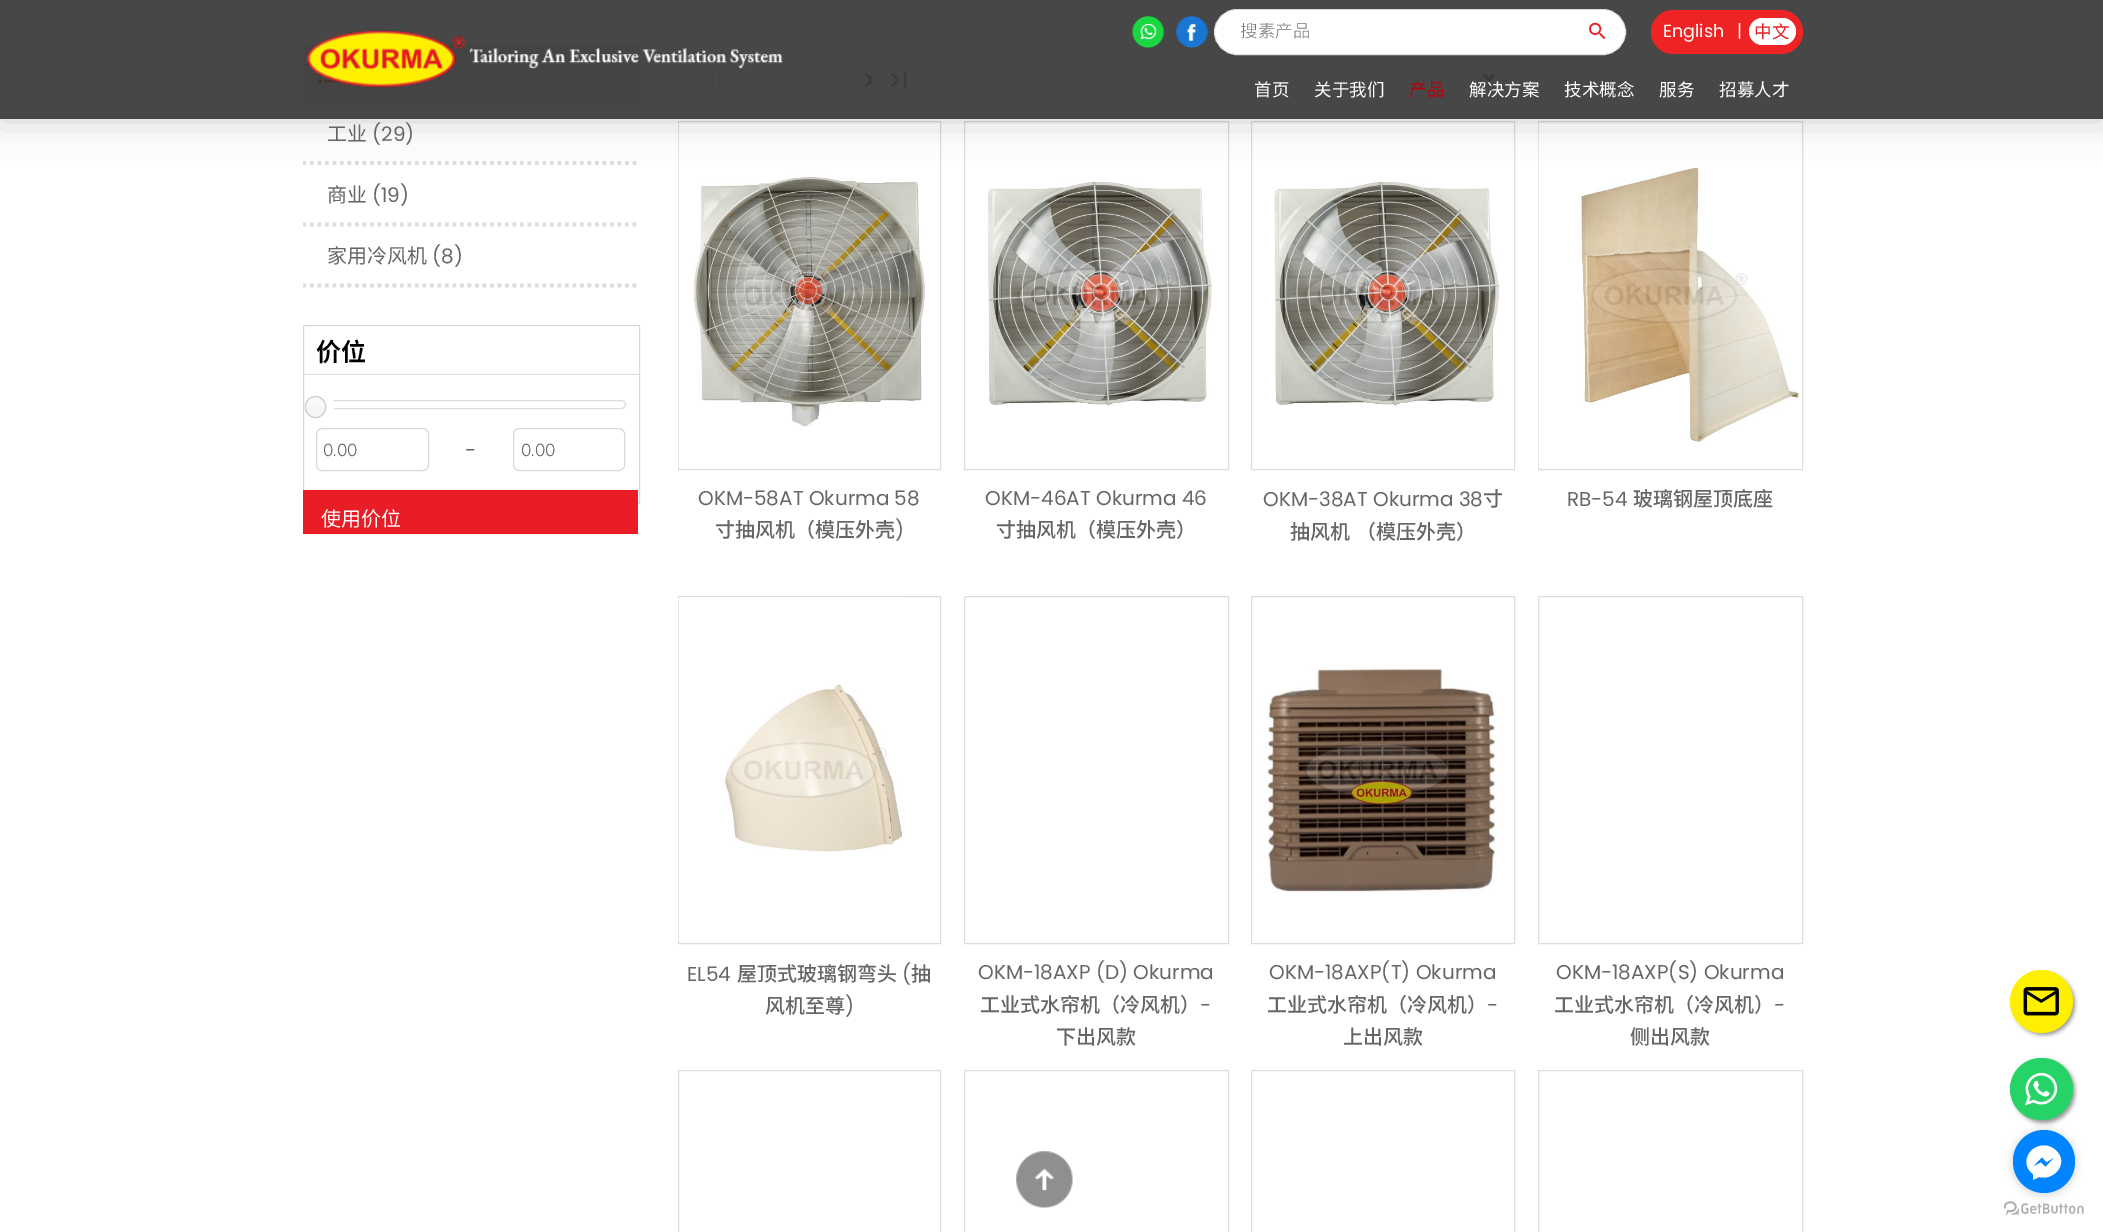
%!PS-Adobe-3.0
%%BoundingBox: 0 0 2103 1232
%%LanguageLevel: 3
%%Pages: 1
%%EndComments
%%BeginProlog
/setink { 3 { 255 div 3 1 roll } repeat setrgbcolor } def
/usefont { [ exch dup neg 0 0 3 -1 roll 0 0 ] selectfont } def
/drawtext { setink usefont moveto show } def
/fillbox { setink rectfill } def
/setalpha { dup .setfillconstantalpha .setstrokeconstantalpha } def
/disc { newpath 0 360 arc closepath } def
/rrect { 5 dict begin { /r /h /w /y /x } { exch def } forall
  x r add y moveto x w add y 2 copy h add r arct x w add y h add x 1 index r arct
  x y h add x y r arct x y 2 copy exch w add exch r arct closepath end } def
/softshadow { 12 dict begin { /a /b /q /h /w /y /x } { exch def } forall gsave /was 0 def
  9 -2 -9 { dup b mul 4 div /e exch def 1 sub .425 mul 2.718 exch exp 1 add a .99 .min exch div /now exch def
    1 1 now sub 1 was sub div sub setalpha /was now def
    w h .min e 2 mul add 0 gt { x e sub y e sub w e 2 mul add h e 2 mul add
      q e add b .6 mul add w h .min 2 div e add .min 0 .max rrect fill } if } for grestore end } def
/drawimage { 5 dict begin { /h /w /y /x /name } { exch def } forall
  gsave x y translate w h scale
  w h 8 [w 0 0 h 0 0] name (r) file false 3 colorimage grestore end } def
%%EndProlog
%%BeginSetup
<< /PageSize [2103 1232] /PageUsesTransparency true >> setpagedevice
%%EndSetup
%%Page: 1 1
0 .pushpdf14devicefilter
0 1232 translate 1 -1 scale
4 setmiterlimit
0 0 2103 1232 255 255 255 fillbox
303 44 337 60 221 221 221 fillbox
(assets/img5.rgb) 318 72 24 12 drawimage
gsave
303 104 337 202 rectclip
3.8 setlinewidth
[3.75 3.75] 0 setdash
302.5 163 moveto 640 163 lineto stroke
grestore
678.5 44.5 1124 64 rectstroke
(assets/img8.rgb) 711 72 16 16 drawimage
(assets/img9.rgb) 744 72 9 16 drawimage
(assets/img10.rgb) 864 72 10 16 drawimage
(assets/img11.rgb) 890 72 17 16 drawimage
1241 55 1 53 221 221 221 fillbox
101 101 101 setink
2.5 setlinewidth
1484 74.5 moveto 1489 79.5 lineto 1494 74.5 lineto stroke
1521 55 1 53 221 221 221 fillbox
1 setlinewidth
678.5 121.5 262 348 rectstroke
(assets/img12.rgb) 678 123 248 345 drawimage
964.5 121.5 264 348 rectstroke
1251.5 121.5 263 348 rectstroke
1538.5 121.5 264 348 rectstroke
(assets/img15.rgb) 1538 123 261 345 drawimage
gsave
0 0 moveto 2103 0 lineto 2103 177 lineto 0 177 lineto closepath 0 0 moveto 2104 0 lineto 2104 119 lineto 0 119 lineto closepath eoclip newpath
0 0 0 setink
0 0 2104 119 0 19 0.2 softshadow
grestore
0.9 setalpha
0 0 2103 119 51 51 51 fillbox
1 setalpha
(assets/img1.rgb) 307 30 476 58 drawimage
(assets/img2.rgb) 1132 16 33 32 drawimage
(assets/img3.rgb) 1176 16 33 32 drawimage
221 221 221 setink
1214.5 9.5 411 45 22.5 rrect stroke
255 255 255 setink
1237 10 moveto 1584 10 lineto 1584 54 lineto 1237 54 lineto 1225 54 1215 44 1215 32 curveto 1215 20 1225 10 1237 10 curveto closepath fill
gsave
1240 23 308 17 rectclip
(搜素产品) 1240 37 /NotoSansSC-Light 17.5 117 117 117 drawtext
grestore
1584 10 moveto 1603 10 lineto 1615 10 1625 20 1625 32 curveto 1625 44 1615 54 1603 54 curveto 1584 54 lineto closepath fill
(assets/img4.rgb) 1589 22 17 18 drawimage
237 36 35 setink
1651 10 152 44 22 rrect fill
(English) 1663 37 /Poppins-Regular 17.5 255 255 255 drawtext
(|) 1737 37 /Poppins-Regular 17.5 255 255 255 drawtext
1749 18 47 27 13.5 rrect fill
(中文) 1754 38 /NotoSansSC-Regular 17.5 232 29 37 drawtext
(首页) 1254 96 /NotoSansSC-Regular 17.5 255 255 255 drawtext
(关于我们) 1314 96 /NotoSansSC-Regular 17.5 255 255 255 drawtext
(产品) 1409 96 /NotoSansSC-Regular 17.5 186 0 7 drawtext
(解决方案) 1469 96 /NotoSansSC-Regular 17.5 255 255 255 drawtext
(技术概念) 1564 96 /NotoSansSC-Regular 17.5 255 255 255 drawtext
(服务) 1659 96 /NotoSansSC-Regular 17.5 255 255 255 drawtext
(招募人才) 1719 96 /NotoSansSC-Regular 17.5 255 255 255 drawtext
(工业) 327 141 /NotoSansSC-Regular 20 102 102 102 drawtext
(\(29\)) 372 141 /Poppins-Regular 20 102 102 102 drawtext
gsave
303 104 337 202 rectclip
221 221 221 setink
3.8 setlinewidth
[3.75 3.75] 0 setdash
302.5 224.5 moveto 640 224.5 lineto stroke
grestore
(商业) 327 202 /NotoSansSC-Regular 20 102 102 102 drawtext
(\(19\)) 372 202 /Poppins-Regular 20 102 102 102 drawtext
gsave
303 104 337 202 rectclip
221 221 221 setink
3.8 setlinewidth
[3.75 3.75] 0 setdash
302.5 285.5 moveto 640 285.5 lineto stroke
grestore
(家用冷风机) 327 263 /NotoSansSC-Regular 20 102 102 102 drawtext
(\(8\)) 432 263 /Poppins-Regular 20 102 102 102 drawtext
217 217 217 setink
303.5 325.5 336 178 rectstroke
(价位) 316 361 /NotoSansSC-SemiBold 25 0 0 0 drawtext
304 374 335 1 221 221 221 fillbox
316.5 400.5 309 8 4 rrect stroke
255 255 255 setink
329 405 6 disc fill
(assets/img6.rgb) 323 400 2 1 drawimage
204 204 204 setink
305.5 396.5 20 21 10 rrect stroke
246 246 246 setink
305 396 21 22 10.5 rrect fill
(assets/img7.rgb) 305 396 21 15 drawimage
204 204 204 setink
305.5 396.5 20 21 10 rrect stroke
217 217 217 setink
316.5 428.5 112 42 5.5 rrect stroke
(0.00) 323 456 /Quicksand-Regular 17.5 102 102 102 drawtext
(-) 465 457 /Poppins-Regular 20 102 102 102 drawtext
217 217 217 setink
513.5 428.5 111 42 5.5 rrect stroke
(0.00) 521 456 /Quicksand-Regular 17.5 102 102 102 drawtext
303 490 335 44 232 29 37 fillbox
(使用价位) 321 526 /NotoSansSC-Regular 20 255 255 255 drawtext
(OKM-58AT Okurma 58) 698 505 /Poppins-Regular 20 102 102 102 drawtext
(寸抽风机（模压外壳) 715 537 /NotoSansSC-Medium 20 102 102 102 drawtext
(\)) 895 537 /Poppins-Regular 20 102 102 102 drawtext
(assets/img13.rgb) 987 181 226 225 drawimage
(OKM-46AT Okurma 46) 985 505 /Poppins-Regular 20 102 102 102 drawtext
(寸抽风机（模压外壳）) 996 537 /NotoSansSC-Medium 20 102 102 102 drawtext
(assets/img14.rgb) 1274 181 226 225 drawimage
(OKM-38AT Okurma 38) 1263 506 /Poppins-Regular 20 102 102 102 drawtext
(寸) 1483 506 /NotoSansSC-Medium 20 102 102 102 drawtext
1290 539 moveto 1 0 32 (抽风机 （模压外壳）) widthshow
(RB-54) 1567 506 /Poppins-Regular 20 102 102 102 drawtext
(玻璃钢屋顶底座) 1633 506 /NotoSansSC-Medium 20 102 102 102 drawtext
221 221 221 setink
678.5 596.5 262 347 rectstroke
(assets/img16.rgb) 678 597 225 345 drawimage
(EL54) 687 981 /Poppins-Regular 20 102 102 102 drawtext
(屋顶式玻璃钢弯头) 737 981 /NotoSansSC-Medium 20 102 102 102 drawtext
(\() 902 981 /Poppins-Regular 20 102 102 102 drawtext
(抽) 911 981 /NotoSansSC-Medium 20 102 102 102 drawtext
(风机至尊) 765 1013 /NotoSansSC-Medium 20 102 102 102 drawtext
(\)) 845 1013 /Poppins-Regular 20 102 102 102 drawtext
221 221 221 setink
964.5 596.5 264 347 rectstroke
(OKM-18AXP \(D\) Okurma) 978 979 /Poppins-Regular 20 102 102 102 drawtext
(工业式水帘机（冷风机）) 980 1012 /NotoSansSC-Medium 20 102 102 102 drawtext
(-) 1200 1012 /Poppins-Regular 20 102 102 102 drawtext
(下出风款) 1056 1044 /NotoSansSC-Medium 20 102 102 102 drawtext
221 221 221 setink
1251.5 596.5 263 347 rectstroke
(assets/img17.rgb) 1263 667 236 225 drawimage
(OKM-18AXP\(T\) Okurma) 1269 979 /Poppins-Regular 20 102 102 102 drawtext
(工业式水帘机（冷风机）) 1267 1012 /NotoSansSC-Medium 20 102 102 102 drawtext
(-) 1487 1012 /Poppins-Regular 20 102 102 102 drawtext
(上出风款) 1343 1044 /NotoSansSC-Medium 20 102 102 102 drawtext
221 221 221 setink
1538.5 596.5 264 347 rectstroke
(OKM-18AXP\(S\) Okurma) 1556 979 /Poppins-Regular 20 102 102 102 drawtext
(工业式水帘机（冷风机）) 1554 1012 /NotoSansSC-Medium 20 102 102 102 drawtext
(-) 1774 1012 /Poppins-Regular 20 102 102 102 drawtext
(侧出风款) 1630 1044 /NotoSansSC-Medium 20 102 102 102 drawtext
221 221 221 setink
678.5 1070.5 262 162 rectstroke
(assets/img20.rgb) 1016 1151 57 57 drawimage
964.5 1070.5 264 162 rectstroke
1251.5 1070.5 263 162 rectstroke
1538.5 1070.5 264 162 rectstroke
153 153 153 setink
2013 973 62 62 31 2 1 softshadow
255 240 1 setink
2041.5 1001.5 31.5 disc fill
(assets/img18.rgb) 2023 987 36 29 drawimage
153 153 153 setink
2013 1060 62 63 31 2 1 softshadow
37 211 102 setink
2010 1058 63 62 31 rrect fill
(assets/img19.rgb) 2025 1072 33 34 drawimage
(assets/img21.rgb) 2004 1201 80 14 drawimage
136 136 136 setink
2013 1131 62 63 31 4.5 0.4 softshadow
0 132 255 setink
2013 1130 62 63 31 rrect fill
255 255 255 setink
2044 1145.5 moveto 2028 1145.5 2020 1164.5 2033 1174 curveto 2033 1180 lineto 2039 1177 lineto 2055 1181 2069 1162.5 2056 1150.5 curveto 2052.5 1147 2048 1145.5 2044 1145.5 curveto closepath 2045.5 1167 moveto 2041 1162.5 lineto 2032.5 1167 lineto 2042 1157 lineto 2046.5 1162 lineto 2055 1157 lineto closepath fill
.poppdf14devicefilter showpage
%%EOF
